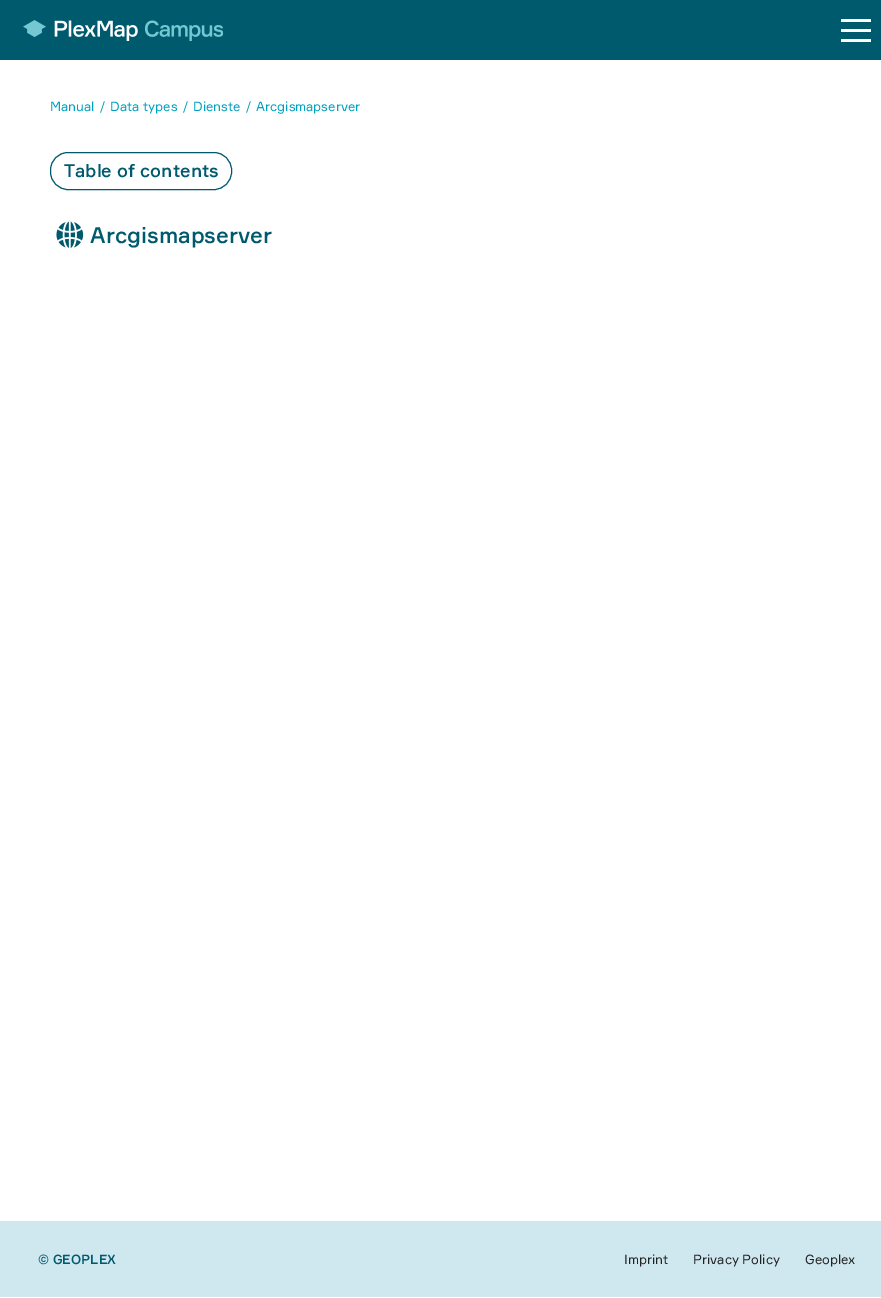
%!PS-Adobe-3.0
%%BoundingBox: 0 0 881 1298
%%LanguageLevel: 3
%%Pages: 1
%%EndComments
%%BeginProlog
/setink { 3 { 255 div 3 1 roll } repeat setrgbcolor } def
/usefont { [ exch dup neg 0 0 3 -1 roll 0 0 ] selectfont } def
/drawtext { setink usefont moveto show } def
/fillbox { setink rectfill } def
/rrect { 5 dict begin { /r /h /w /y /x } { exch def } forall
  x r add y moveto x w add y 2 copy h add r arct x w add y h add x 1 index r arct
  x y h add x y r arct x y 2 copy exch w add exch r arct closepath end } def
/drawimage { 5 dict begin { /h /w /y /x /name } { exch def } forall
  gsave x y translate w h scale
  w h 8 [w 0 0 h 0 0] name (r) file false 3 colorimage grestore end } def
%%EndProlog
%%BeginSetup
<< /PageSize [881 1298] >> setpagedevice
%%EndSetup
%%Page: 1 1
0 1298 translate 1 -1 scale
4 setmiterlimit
0 0 881 1298 255 255 255 fillbox
0 0 881 60 0 90 110 fillbox
(assets/img1.rgb) 23 20 200 21 drawimage
841 29 30 3 255 255 255 fillbox
841 19 30 3 255 255 255 fillbox
841 39 30 3 255 255 255 fillbox
(Manual) 50 111 /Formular-Regular 13 0 160 190 drawtext
(/) 100 111 /Formular-Regular 13 0 160 190 drawtext
(Data types) 110 111 /Formular-Regular 13 0 160 190 drawtext
(/) 183 111 /Formular-Regular 13 0 160 190 drawtext
(Dienste) 193 111 /Formular-Regular 13 0 160 190 drawtext
(/) 246 111 /Formular-Regular 13 0 160 190 drawtext
(Arcgismapserver) 256 111 /Formular-Regular 13 0 160 190 drawtext
0 90 110 setink
50.5 152.5 181 37 17.5 rrect stroke
(Table of contents) 64 177 /Formular-Medium 18 0 90 110 drawtext
(assets/img2.rgb) 56 221 28 27 drawimage
(Arcgismapserver) 90 243 /Formular-Medium 22 0 90 110 drawtext
0 1221 881 76 207 231 239 fillbox
(© GEOPLEX) 38 1264 /Formular-Medium 13 0 90 110 drawtext
(Imprint) 624 1264 /Formular-Regular 13 34 34 34 drawtext
(Privacy Policy) 693 1264 /Formular-Regular 13 34 34 34 drawtext
(Geoplex) 805 1264 /Formular-Regular 13 34 34 34 drawtext
showpage
%%EOF
